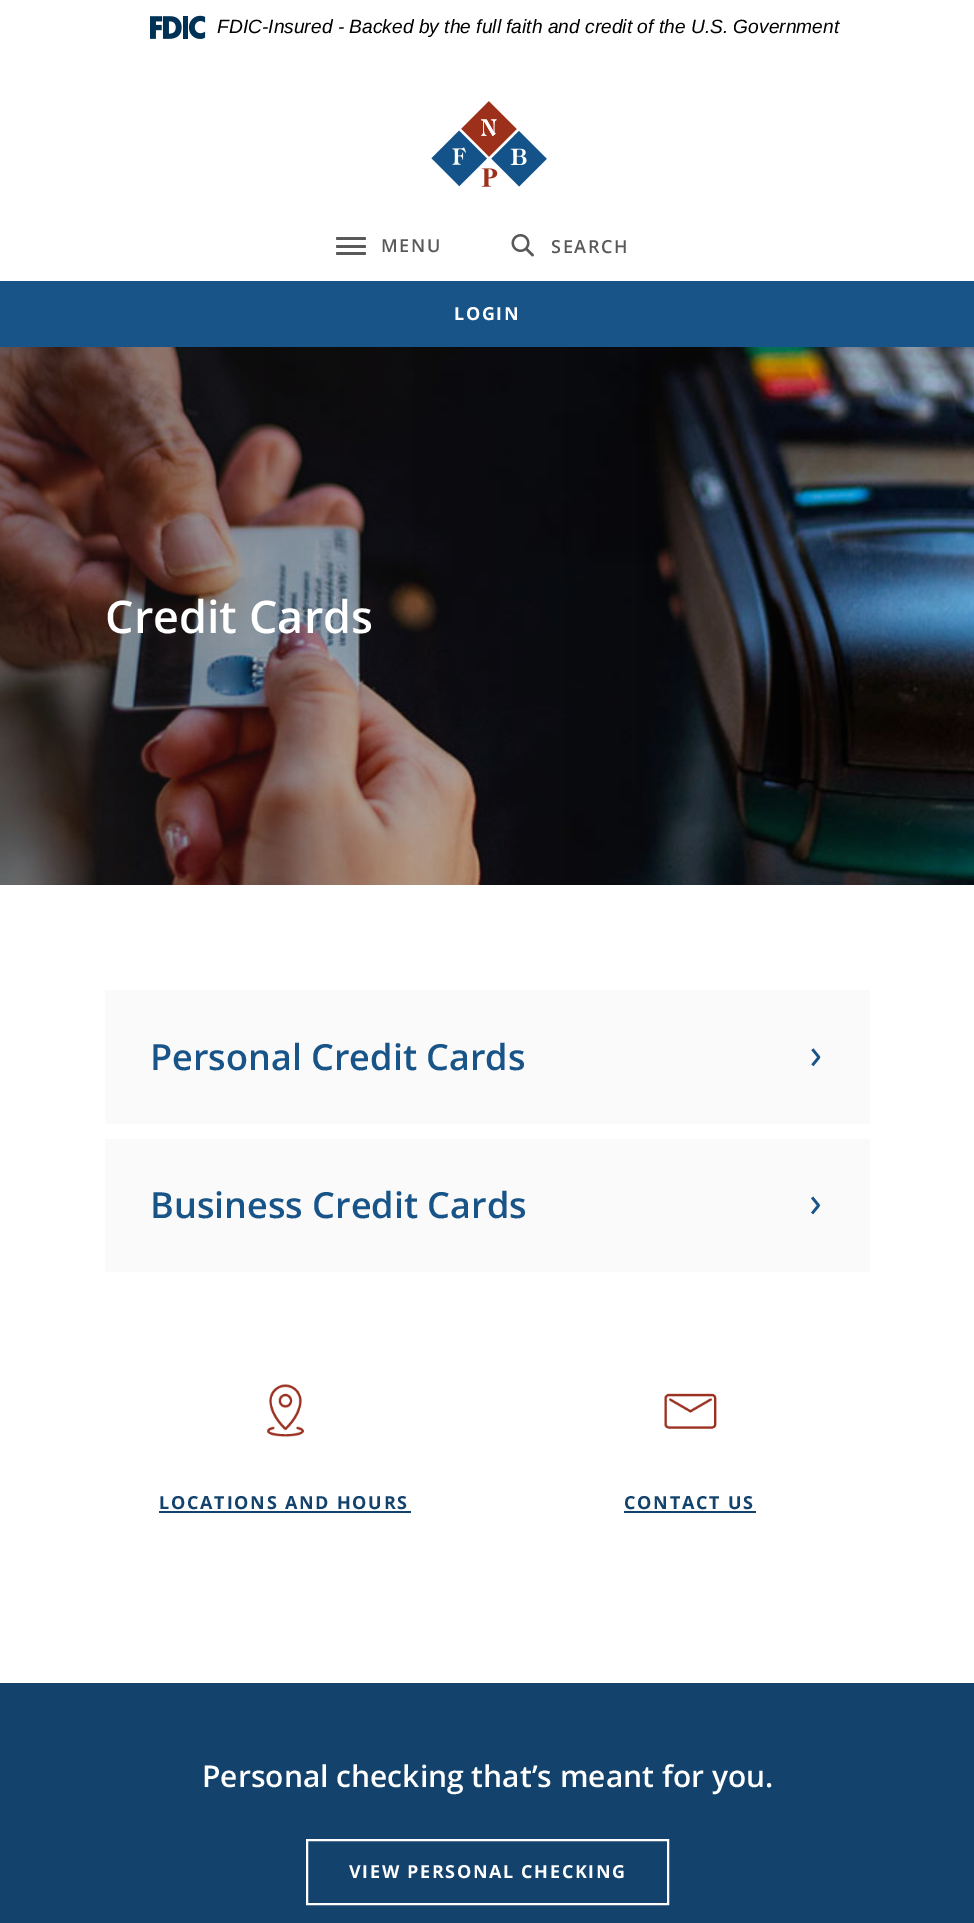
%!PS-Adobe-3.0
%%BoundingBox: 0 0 974 1923
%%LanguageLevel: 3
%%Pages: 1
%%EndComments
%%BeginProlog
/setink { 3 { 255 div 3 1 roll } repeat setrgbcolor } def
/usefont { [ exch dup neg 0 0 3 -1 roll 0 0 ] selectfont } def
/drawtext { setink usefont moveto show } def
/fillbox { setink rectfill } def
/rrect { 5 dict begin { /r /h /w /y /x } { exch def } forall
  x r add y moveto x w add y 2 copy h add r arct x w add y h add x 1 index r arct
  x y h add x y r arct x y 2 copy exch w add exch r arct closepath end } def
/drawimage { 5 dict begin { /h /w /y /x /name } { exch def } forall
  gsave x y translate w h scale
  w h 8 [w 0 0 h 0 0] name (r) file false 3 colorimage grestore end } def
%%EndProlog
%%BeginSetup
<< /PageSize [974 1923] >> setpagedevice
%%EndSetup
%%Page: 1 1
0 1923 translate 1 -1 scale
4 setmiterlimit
0 0 974 1923 255 255 255 fillbox
(assets/img1.rgb) 150 15 56 24 drawimage
(FDIC-Insured - Backed by the full faith and credit of the U.S. Government) 217 33 /LiberationSans-Italic 19.2 0 0 0 drawtext
(assets/img2.rgb) 431 101 116 86 drawimage
89 89 89 setink
336 237 30 3 1.5 rrect fill
336 245 30 3 1.5 rrect fill
336 252 30 3 1.5 rrect fill
/OpenSans-SemiBold 18 usefont
381 252 moveto 1.75 0 (MENU) ashow
(assets/img3.rgb) 511 234 23 23 drawimage
551 253 moveto 1.75 0 (SEARCH) ashow
0 281 974 66 24 84 135 fillbox
/OpenSans-Bold 18 usefont
255 255 255 setink
454 320 moveto 1.65 0 (LOGIN) ashow
(assets/img4.rgb) 0 347 974 538 drawimage
(Credit Cards) 105 633 /OpenSans-SemiBold 45 255 255 255 drawtext
105 990 765 134 250 250 250 fillbox
(Personal Credit Cards) 150 1070 /OpenSans-SemiBold 36 24 84 135 drawtext
(assets/img5.rgb) 811 1048 10 19 drawimage
105 1139 765 133 250 250 250 fillbox
(Business Credit Cards) 150 1218 /OpenSans-SemiBold 36 24 84 135 drawtext
(assets/img6.rgb) 811 1196 9 19 drawimage
(assets/img7.rgb) 267 1384 37 53 drawimage
/OpenSans-Bold 18 usefont
19 67 108 setink
159 1509 moveto 1.75 0 (LOCATIONS AND HOURS) ashow
159 1511 252 2 19 67 108 fillbox
(assets/img8.rgb) 664 1393 53 36 drawimage
624 1509 moveto 1.75 0 (CONTACT US) ashow
624 1511 132 2 19 67 108 fillbox
0 1683 974 240 19 67 108 fillbox
(Personal checking that’s meant for you.) 202 1787 /OpenSans-SemiBold 30 255 255 255 drawtext
2 setlinewidth
307 1840 361 64 rectstroke
/OpenSans-Bold 18 usefont
349 1878 moveto 1.65 0 (VIEW PERSONAL CHECKING) ashow
showpage
%%EOF
